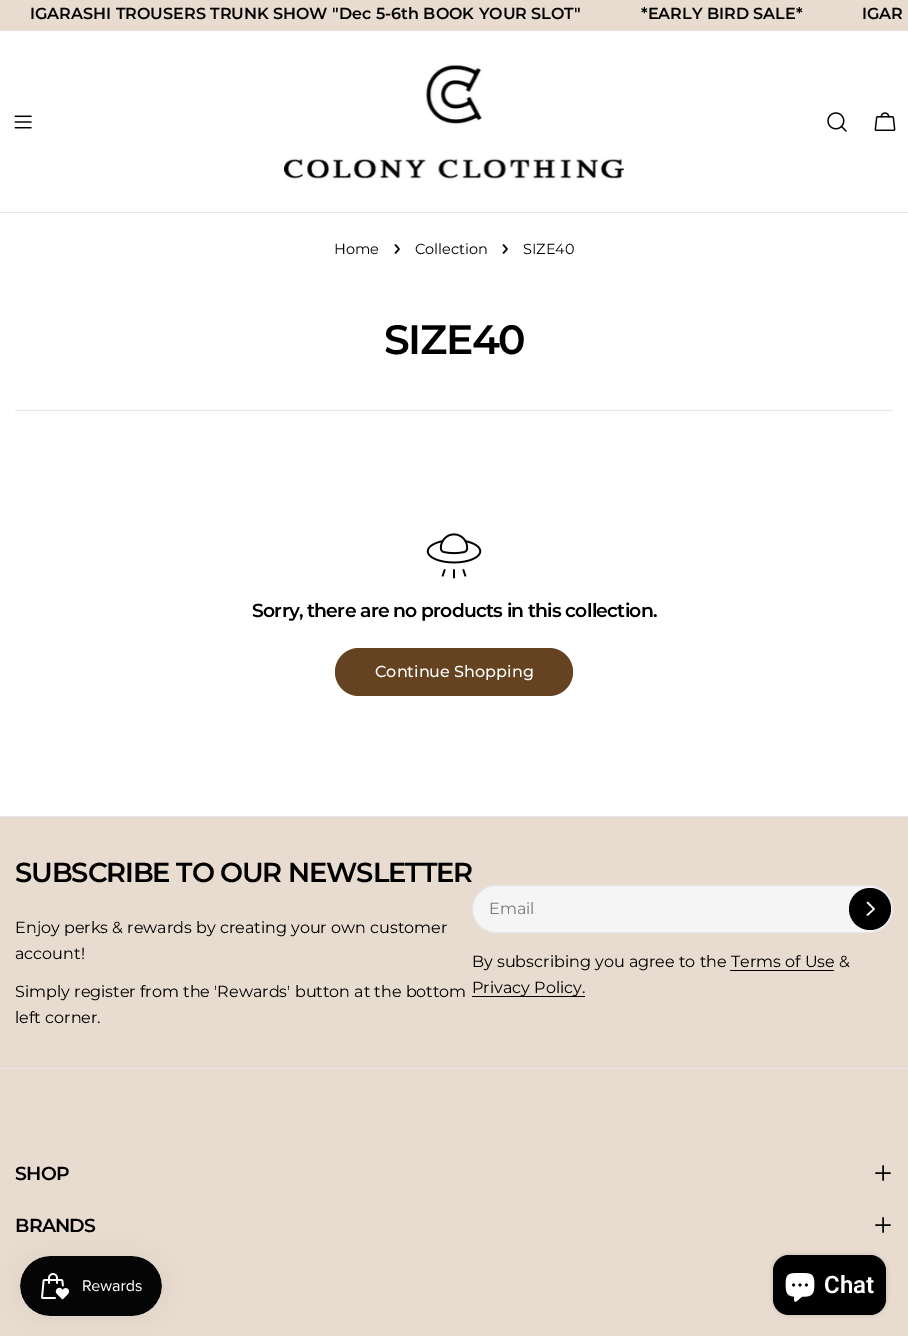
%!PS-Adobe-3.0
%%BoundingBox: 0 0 908 1336
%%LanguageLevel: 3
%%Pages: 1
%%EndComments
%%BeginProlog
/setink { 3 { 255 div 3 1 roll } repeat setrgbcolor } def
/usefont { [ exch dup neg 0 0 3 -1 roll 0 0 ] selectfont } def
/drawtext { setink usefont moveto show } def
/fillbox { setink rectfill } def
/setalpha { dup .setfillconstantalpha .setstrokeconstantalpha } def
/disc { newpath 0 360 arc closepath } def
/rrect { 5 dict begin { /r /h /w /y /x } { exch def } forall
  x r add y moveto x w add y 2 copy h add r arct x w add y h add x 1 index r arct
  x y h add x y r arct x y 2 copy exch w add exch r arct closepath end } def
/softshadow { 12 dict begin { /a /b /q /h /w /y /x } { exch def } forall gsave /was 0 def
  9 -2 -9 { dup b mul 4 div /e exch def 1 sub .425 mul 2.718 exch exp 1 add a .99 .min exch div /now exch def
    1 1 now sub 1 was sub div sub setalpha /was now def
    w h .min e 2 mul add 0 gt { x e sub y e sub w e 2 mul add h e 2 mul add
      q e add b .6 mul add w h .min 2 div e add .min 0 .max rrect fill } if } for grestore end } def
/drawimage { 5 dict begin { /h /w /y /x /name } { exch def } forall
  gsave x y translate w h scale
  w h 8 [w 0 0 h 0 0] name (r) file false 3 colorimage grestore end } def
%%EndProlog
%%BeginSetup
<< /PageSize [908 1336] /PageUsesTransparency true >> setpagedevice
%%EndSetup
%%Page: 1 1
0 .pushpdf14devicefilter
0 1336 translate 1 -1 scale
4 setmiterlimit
0 0 908 1336 255 255 255 fillbox
0 0 908 31 232 220 208 fillbox
(IGARASHI TROUSERS TRUNK SHOW "Dec 5-6th BOOK YOUR SLOT") 30 19 /Montserrat-SemiBold 16 0 0 0 drawtext
(*EARLY BIRD SALE*) 641 19 /Montserrat-SemiBold 16 0 0 0 drawtext
(IGAR) 862 19 /Montserrat-SemiBold 16 0 0 0 drawtext
0 212 908 1 230 230 230 fillbox
(assets/img1.rgb) 14 115 18 14 drawimage
(assets/img2.rgb) 284 63 340 116 drawimage
(assets/img3.rgb) 827 112 20 20 drawimage
(assets/img4.rgb) 874 112 22 19 drawimage
(Home) 334 254 /Montserrat-Regular 14.5 0 0 0 drawtext
1.5 setlinewidth
1 setlinecap
1 setlinejoin
395.5 245 moveto 399 249 lineto 395.5 253 lineto stroke
(Collection) 415 254 /Montserrat-Regular 14.5 0 0 0 drawtext
503.5 245 moveto 507 249 lineto 503.5 253 lineto stroke
(SIZE40) 523 254 /Montserrat-Regular 14.5 0 0 0 drawtext
/Montserrat-SemiBold 41 usefont
384 354 moveto -1.5 0 (SIZE40) ashow
15 410 878 1 230 230 230 fillbox
(assets/img5.rgb) 426 533 56 46 drawimage
/Montserrat-SemiBold 18.8 usefont
0 0 0 setink
252 617 moveto -0.75 0 (Sorry, there are no products in this collection.) ashow
101 67 33 setink
335 648 238 48 24 rrect fill
(Continue Shopping) 375 677 /Montserrat-Medium 16 255 255 255 drawtext
0 816 908 1 230 230 230 fillbox
0 817 908 251 232 220 208 fillbox
/Montserrat-SemiBold 27.4 usefont
0 0 0 setink
15 882 moveto -1.1 0 (SUBSCRIBE TO OUR NEWSLETTER) ashow
(Enjoy perks & rewards by creating your own customer) 15 933 /Montserrat-Regular 16 0 0 0 drawtext
(account!) 15 959 /Montserrat-Regular 16 0 0 0 drawtext
(Simply register from the 'Rewards' button at the bottom) 15 997 /Montserrat-Regular 16 0 0 0 drawtext
(left corner.) 15 1023 /Montserrat-Regular 16 0 0 0 drawtext
245 245 245 setink
472.5 885.5 420 47 23.5 rrect gsave fill grestore
230 230 230 setink
1 setlinewidth
0 setlinecap
0 setlinejoin
stroke
(Email) 489 914 /Montserrat-Regular 16 123 123 123 drawtext
0 0 0 setink
870 909 21 disc fill
255 255 255 setink
1.5 setlinewidth
1 setlinecap
1 setlinejoin
867.5 902.5 moveto 874 909 lineto 867.5 915 lineto stroke
(By subscribing you agree to the Terms of Use &) 472 967 /Montserrat-Regular 16 0 0 0 drawtext
730 970 104 1 0 0 0 fillbox
472 996 113 1 0 0 0 fillbox
(Privacy Policy.) 472 993 /Montserrat-Regular 16 0 0 0 drawtext
0 1069 908 267 232 220 208 fillbox
0 1068 908 1 230 230 230 fillbox
/Montserrat-SemiBold 18.8 usefont
0 0 0 setink
15 1180 moveto -0.75 0 (SHOP) ashow
876 1173 moveto 890 1173 lineto 883 1166 moveto 883 1180 lineto stroke
15 1232 moveto -0.75 0 (BRANDS) ashow
876 1225 moveto 890 1225 lineto 883 1218 moveto 883 1232 lineto stroke
20 1256 142 60 30 12.5 0.05 softshadow
(assets/img6.rgb) 20 1256 142 60 drawimage
773 1255 113 60 16 2.5 0.15 softshadow
773 1255 113 60 16 rrect fill
(assets/img7.rgb) 785 1273 30 29 drawimage
(Chat) 824 1293 /Roboto-SemiBold 24 255 255 255 drawtext
.poppdf14devicefilter showpage
%%EOF
